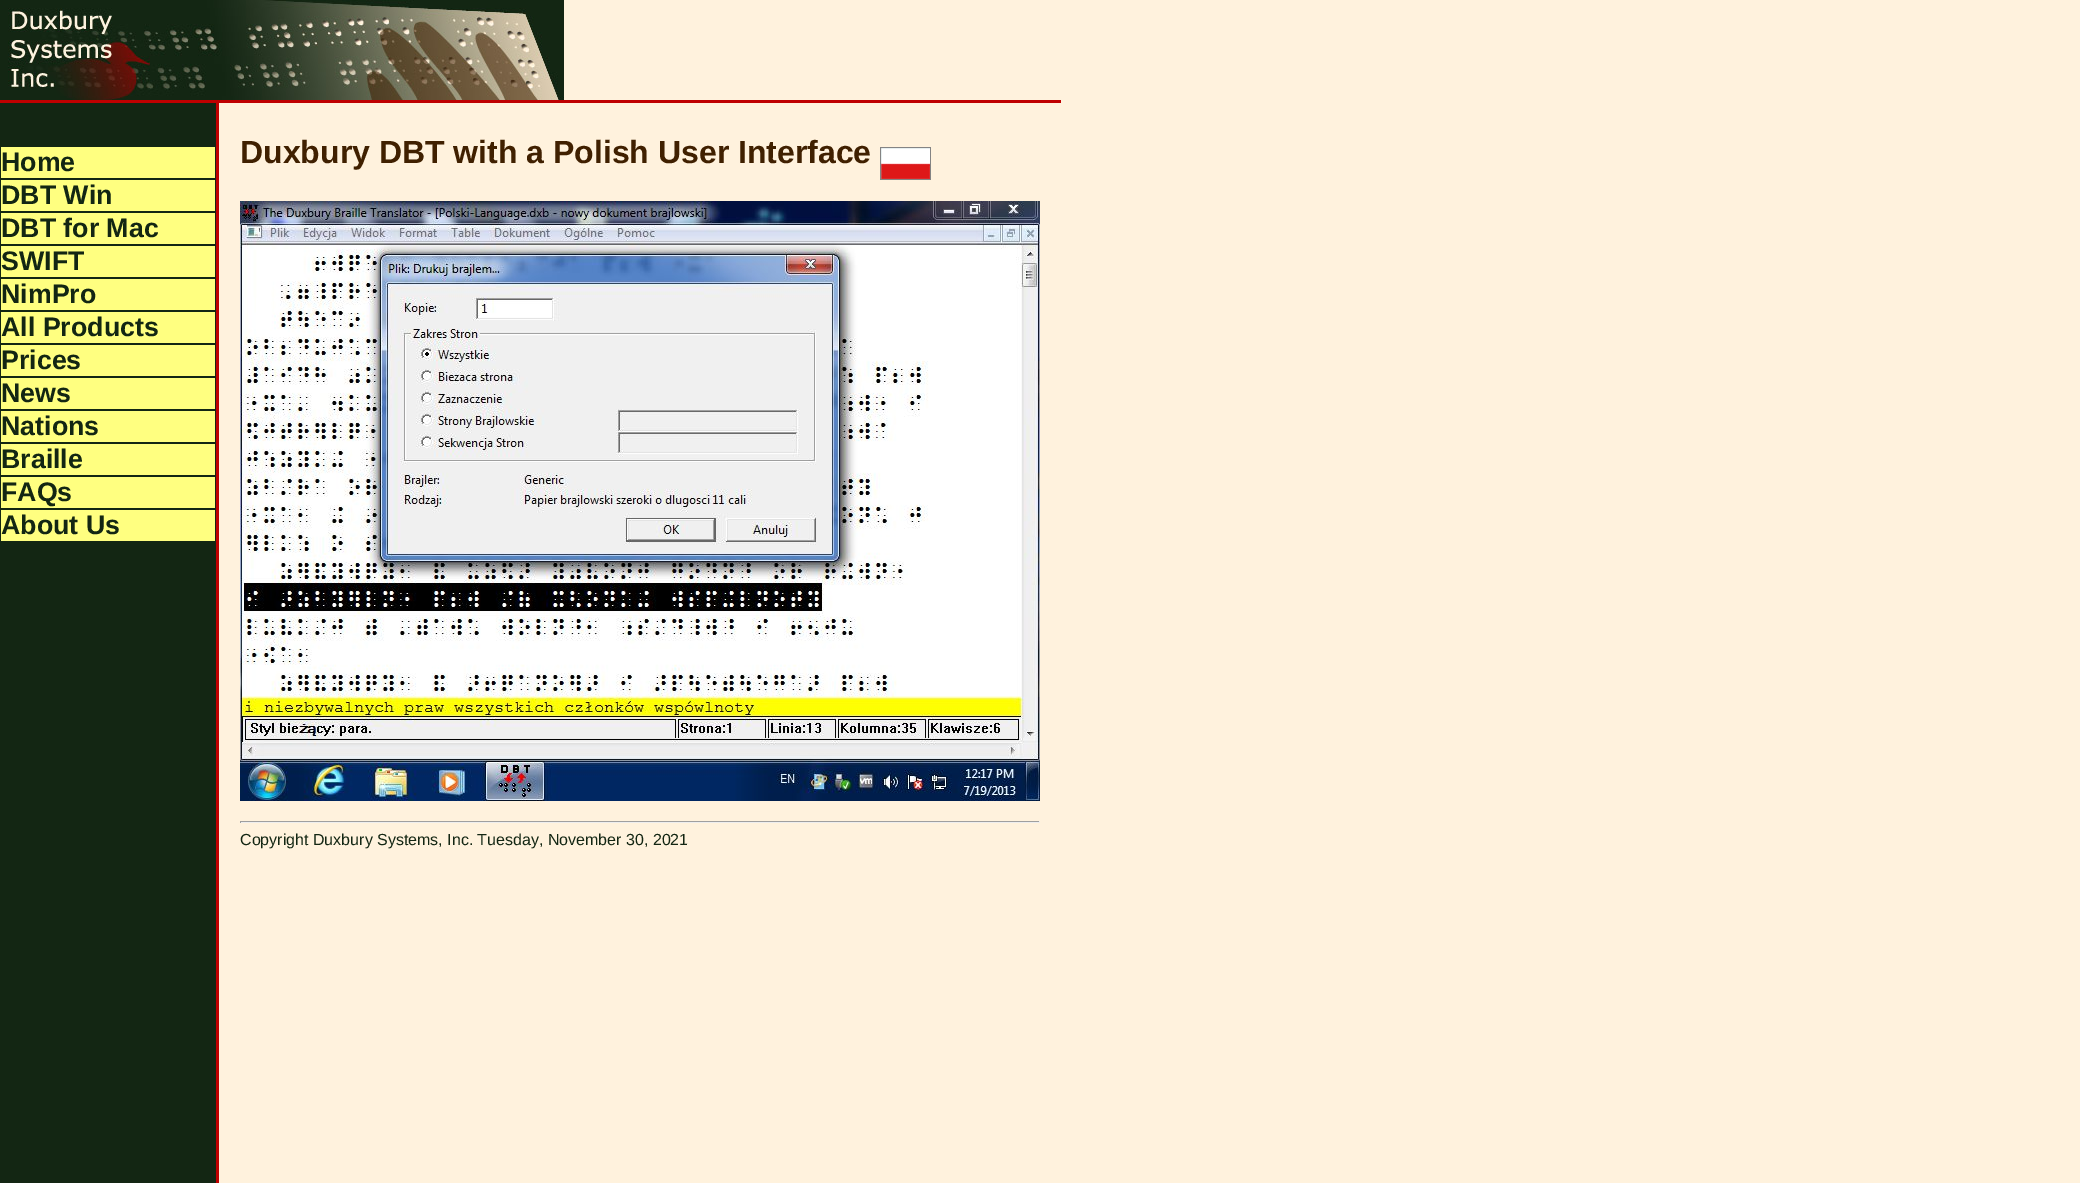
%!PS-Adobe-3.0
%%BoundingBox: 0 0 2080 1183
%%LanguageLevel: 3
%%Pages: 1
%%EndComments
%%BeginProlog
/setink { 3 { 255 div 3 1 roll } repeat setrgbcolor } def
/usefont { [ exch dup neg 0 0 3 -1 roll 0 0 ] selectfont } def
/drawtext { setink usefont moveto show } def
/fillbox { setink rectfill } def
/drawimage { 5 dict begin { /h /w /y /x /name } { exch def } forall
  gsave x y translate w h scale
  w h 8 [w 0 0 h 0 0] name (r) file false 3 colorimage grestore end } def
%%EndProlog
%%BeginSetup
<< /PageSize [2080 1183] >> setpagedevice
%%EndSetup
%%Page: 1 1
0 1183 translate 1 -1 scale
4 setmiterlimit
0 0 2080 1183 255 242 221 fillbox
(assets/img1.rgb) 0 0 150 100 drawimage
(assets/img2.rgb) 150 0 414 100 drawimage
0 103 216 1080 19 38 19 fillbox
0 100 1061 3 191 0 0 fillbox
1 147 214 31 255 255 128 fillbox
(Home) 1 171 /LiberationSans-Bold 26.75 19 38 19 drawtext
1 180 214 31 255 255 128 fillbox
(DBT Win) 1 204 /LiberationSans-Bold 26.75 19 38 19 drawtext
1 213 214 31 255 255 128 fillbox
(DBT for Mac) 1 237 /LiberationSans-Bold 26.75 19 38 19 drawtext
1 246 214 31 255 255 128 fillbox
(SWIFT) 1 270 /LiberationSans-Bold 26.75 19 38 19 drawtext
1 279 214 31 255 255 128 fillbox
(NimPro) 1 303 /LiberationSans-Bold 26.75 19 38 19 drawtext
1 312 214 31 255 255 128 fillbox
(All Products) 1 336 /LiberationSans-Bold 26.75 19 38 19 drawtext
1 345 214 31 255 255 128 fillbox
(Prices) 1 369 /LiberationSans-Bold 26.75 19 38 19 drawtext
1 378 214 31 255 255 128 fillbox
(News) 1 402 /LiberationSans-Bold 26.75 19 38 19 drawtext
1 411 214 31 255 255 128 fillbox
(Nations) 1 435 /LiberationSans-Bold 26.75 19 38 19 drawtext
1 444 214 31 255 255 128 fillbox
(Braille) 1 468 /LiberationSans-Bold 26.75 19 38 19 drawtext
1 477 214 31 255 255 128 fillbox
(FAQs) 1 501 /LiberationSans-Bold 26.75 19 38 19 drawtext
1 510 214 31 255 255 128 fillbox
(About Us) 1 534 /LiberationSans-Bold 26.75 19 38 19 drawtext
216 100 3 1083 191 0 0 fillbox
(Duxbury DBT with a Polish User Interface) 240 163 /LiberationSans-Bold 32 64 32 0 drawtext
(assets/img3.rgb) 880 147 51 33 drawimage
(assets/img4.rgb) 240 201 800 600 drawimage
240 821 800 1 159 159 159 fillbox
1039 821 1 2 238 238 238 fillbox
240 822 800 1 238 238 238 fillbox
240 821 1 2 159 159 159 fillbox
(Copyright Duxbury Systems, Inc. Tuesday, November 30, 2021) 240 845 /LiberationSans-Regular 16 19 38 19 drawtext
showpage
%%EOF
